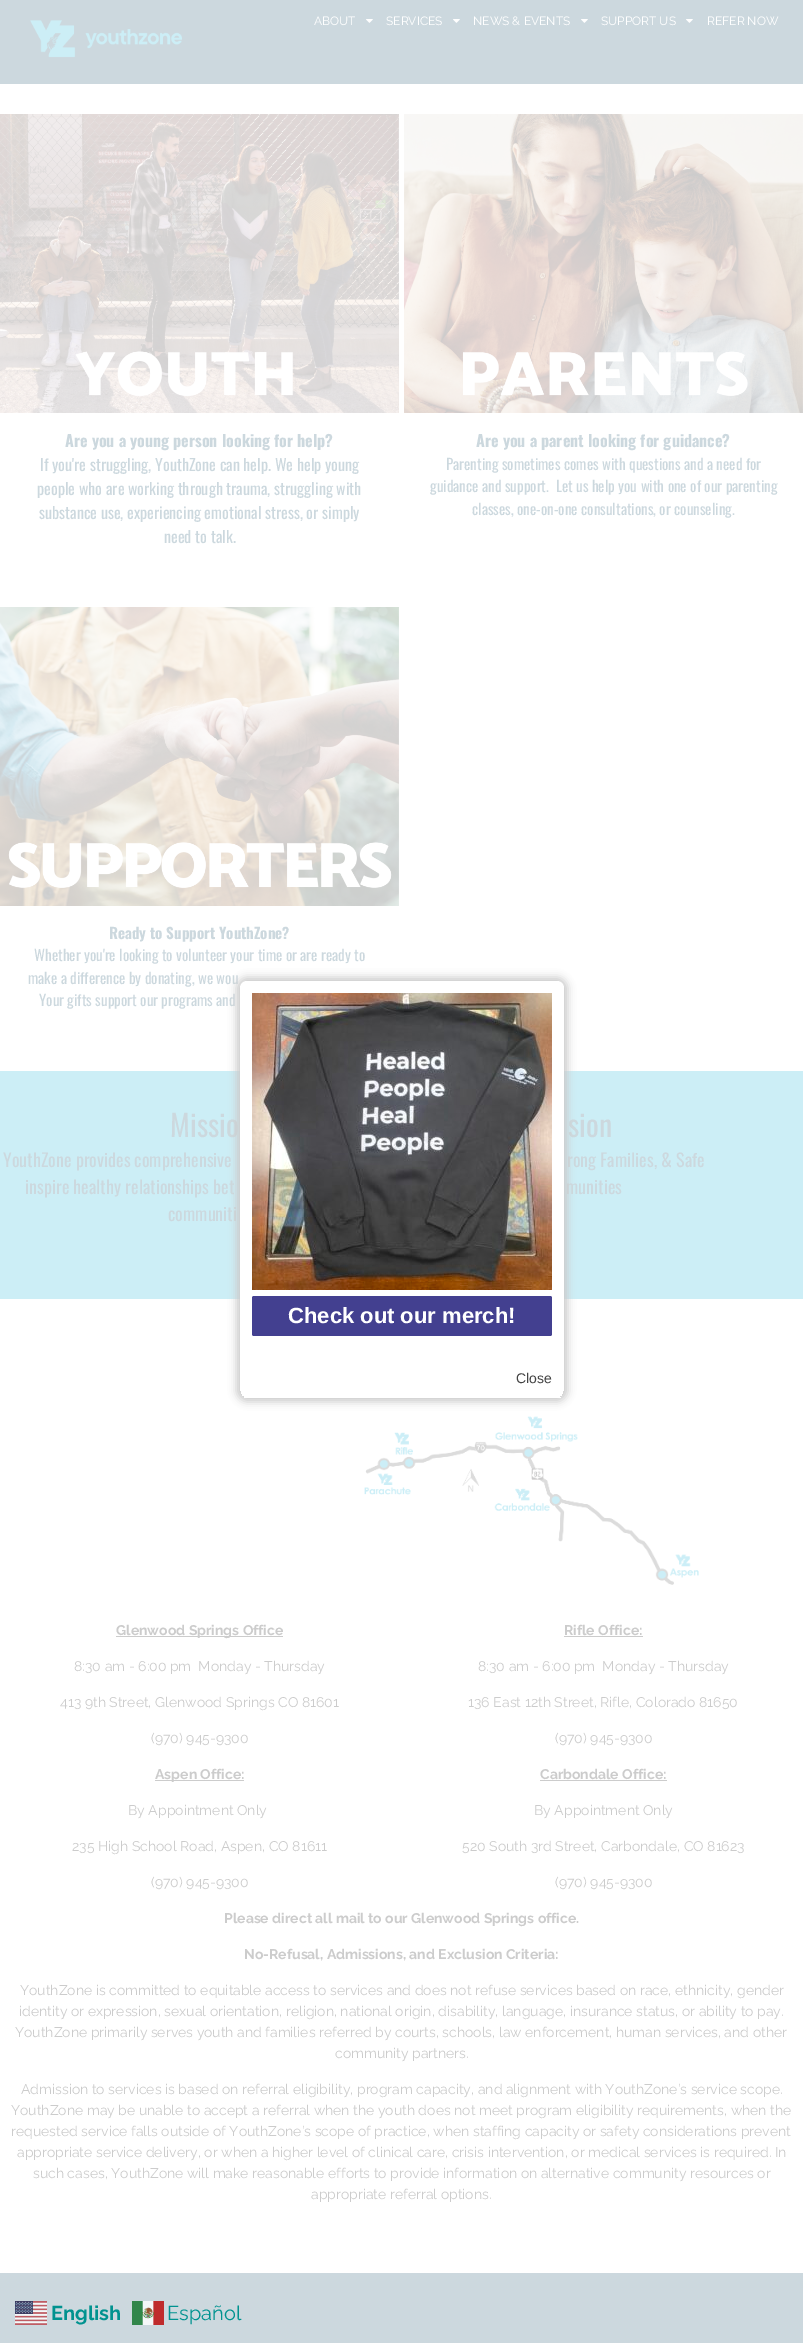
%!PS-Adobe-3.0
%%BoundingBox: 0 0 803 2343
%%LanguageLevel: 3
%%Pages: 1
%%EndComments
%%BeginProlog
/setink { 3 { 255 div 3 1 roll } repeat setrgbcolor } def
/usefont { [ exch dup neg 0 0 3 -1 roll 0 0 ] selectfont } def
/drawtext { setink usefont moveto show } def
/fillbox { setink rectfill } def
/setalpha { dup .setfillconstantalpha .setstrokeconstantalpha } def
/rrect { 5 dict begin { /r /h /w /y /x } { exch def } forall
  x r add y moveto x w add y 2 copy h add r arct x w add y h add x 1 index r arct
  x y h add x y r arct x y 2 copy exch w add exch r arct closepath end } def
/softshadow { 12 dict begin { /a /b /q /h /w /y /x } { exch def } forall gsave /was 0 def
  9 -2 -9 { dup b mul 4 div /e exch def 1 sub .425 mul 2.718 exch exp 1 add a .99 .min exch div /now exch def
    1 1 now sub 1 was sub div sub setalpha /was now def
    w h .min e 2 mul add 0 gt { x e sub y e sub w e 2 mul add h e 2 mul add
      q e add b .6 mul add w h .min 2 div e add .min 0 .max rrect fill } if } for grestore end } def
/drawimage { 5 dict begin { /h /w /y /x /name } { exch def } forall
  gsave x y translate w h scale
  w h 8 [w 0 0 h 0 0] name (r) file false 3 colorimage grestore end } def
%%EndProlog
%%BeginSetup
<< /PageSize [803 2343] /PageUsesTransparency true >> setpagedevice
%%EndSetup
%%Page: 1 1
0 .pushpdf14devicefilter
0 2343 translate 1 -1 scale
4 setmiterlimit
0 0 803 2343 255 255 255 fillbox
0 0 803 84 204 216 222 fillbox
(assets/img1.rgb) 30 20 152 38 drawimage
(ABOUT) 314 25 /Raleway-Regular 12 255 255 255 drawtext
(assets/img2.rgb) 366 19 7 4 drawimage
(SERVICES) 386 25 /Raleway-Regular 12 255 255 255 drawtext
(assets/img2.rgb) 453 19 7 4 drawimage
(NEWS & EVENTS) 473 25 /Raleway-Regular 12 255 255 255 drawtext
(assets/img2.rgb) 581 19 7 4 drawimage
(SUPPORT US) 601 25 /Raleway-Regular 12 255 255 255 drawtext
(assets/img2.rgb) 686 19 7 4 drawimage
(REFER NOW) 707 25 /Raleway-Regular 12 255 255 255 drawtext
(assets/img3.rgb) 0 114 399 299 drawimage
(Are you a young person looking for help?) 65 447 /Oswald-Bold 16 204 216 222 drawtext
(If you're struggling, YouthZone can help. We help young) 40 471 /Oswald-Regular 16 204 216 222 drawtext
(people who are working through trauma, struggling with) 37 495 /Oswald-Regular 16 204 216 222 drawtext
(substance use, experiencing emotional stress, or simply) 39 519 /Oswald-Regular 16 204 216 222 drawtext
(need to talk.) 164 543 /Oswald-Regular 16 204 216 222 drawtext
(assets/img4.rgb) 404 114 399 299 drawimage
(Are you a parent looking for guidance?) 476 447 /Oswald-Bold 16 204 216 222 drawtext
(Parenting sometimes comes with questions and a need for) 446 470 /Oswald-Regular 15 204 216 222 drawtext
(guidance and support.  Let us help you with one of our parenting) 430 492 /Oswald-Regular 15 204 216 222 drawtext
(classes, one-on-one consultations, or counseling.) 472 515 /Oswald-Regular 15 204 216 222 drawtext
(assets/img5.rgb) 0 607 399 299 drawimage
(Ready to Support YouthZone?) 109 939 /Oswald-Bold 15 204 216 222 drawtext
(Whether you're looking to volunteer your time or are ready to) 34 961 /Oswald-Regular 15 204 216 222 drawtext
(make a difference by donating, we wou) 28 984 /Oswald-Regular 15 204 216 222 drawtext
(Your gifts support our programs and) 39 1006 /Oswald-Regular 15 204 216 222 drawtext
0 1071 803 228 204 238 246 fillbox
(Missio) 170 1137 /Oswald-Regular 30 204 216 222 drawtext
(YouthZone provides comprehensive) 3 1167 /Oswald-Regular 18 204 216 222 drawtext
(inspire healthy relationships bet) 25 1194 /Oswald-Regular 18 204 216 222 drawtext
(communiti) 168 1221 /Oswald-Regular 18 204 216 222 drawtext
(sion) 568 1137 /Oswald-Regular 30 204 216 222 drawtext
(rong Families, & Safe) 567 1167 /Oswald-Regular 18 204 216 222 drawtext
(munities) 566 1194 /Oswald-Regular 18 204 216 222 drawtext
(assets/img6.rgb) 364 1416 335 169 drawimage
116 1636 167 1 204 204 204 fillbox
(Glenwood Springs Office) 116 1635 /Raleway-Bold 14 204 204 204 drawtext
(8:30 am - 6:00 pm  Monday - Thursday) 74 1671 /Raleway-Regular 14 204 204 204 drawtext
(413 9th Street, Glenwood Springs CO 81601) 60 1707 /Raleway-Regular 14 204 204 204 drawtext
(\(970\) 945-9300) 151 1743 /Raleway-Regular 14 204 204 204 drawtext
(Rifle Office:) 564 1635 /Raleway-Bold 14 204 204 204 drawtext
564 1636 79 1 204 204 204 fillbox
(8:30 am - 6:00 pm  Monday - Thursday) 478 1671 /Raleway-Regular 14 204 204 204 drawtext
(136 East 12th Street, Rifle, Colorado 81650) 468 1707 /Raleway-Regular 14 204 204 204 drawtext
(\(970\) 945-9300) 555 1743 /Raleway-Regular 14 204 204 204 drawtext
155 1780 89 1 204 204 204 fillbox
(Aspen Office:) 155 1779 /Raleway-Bold 14 204 204 204 drawtext
(By Appointment Only) 128 1815 /Raleway-Regular 14 204 204 204 drawtext
(235 High School Road, Aspen, CO 81611) 72 1851 /Raleway-Regular 14 204 204 204 drawtext
(\(970\) 945-9300) 151 1887 /Raleway-Regular 14 204 204 204 drawtext
(Carbondale Office:) 540 1779 /Raleway-Bold 14 204 204 204 drawtext
540 1780 127 1 204 204 204 fillbox
(By Appointment Only) 534 1815 /Raleway-Regular 14 204 204 204 drawtext
(520 South 3rd Street, Carbondale, CO 81623) 462 1851 /Raleway-Regular 14 204 204 204 drawtext
(\(970\) 945-9300) 555 1887 /Raleway-Regular 14 204 204 204 drawtext
(Please direct all mail to our Glenwood Springs office.) 224 1923 /Raleway-Bold 14 204 204 204 drawtext
(No-Refusal, Admissions, and Exclusion Criteria:) 244 1959 /Raleway-Bold 14 204 204 204 drawtext
(YouthZone is committed to equitable access to services and does not refuse services based on race, ethnicity, gender) 20 1995 /Raleway-Regular 14 204 204 204 drawtext
(identity or expression, sexual orientation, religion, national origin, disability, language, insurance status, or ability to pay.) 19 2016 /Raleway-Regular 14 204 204 204 drawtext
(YouthZone primarily serves youth and families referred by courts, schools, law enforcement, human services, and other) 15 2037 /Raleway-Regular 14 204 204 204 drawtext
(community partners.) 335 2058 /Raleway-Regular 14 204 204 204 drawtext
(Admission to services is based on referral eligibility, program capacity, and alignment with YouthZone’s service scope.) 21 2094 /Raleway-Regular 14 204 204 204 drawtext
(YouthZone may be unable to accept a referral when the youth does not meet program eligibility requirements, when the) 11 2115 /Raleway-Regular 14 204 204 204 drawtext
(requested service falls outside of YouthZone’s scope of practice, when staffing capacity or safety considerations prevent) 11 2136 /Raleway-Regular 14 204 204 204 drawtext
(appropriate service delivery, or when a higher level of clinical care, crisis intervention, or medical services is required. In) 17 2157 /Raleway-Regular 14 204 204 204 drawtext
(such cases, YouthZone will make reasonable efforts to provide information on alternative community resources or) 33 2178 /Raleway-Regular 14 204 204 204 drawtext
(appropriate referral options.) 311 2199 /Raleway-Regular 14 204 204 204 drawtext
0 2273 803 70 204 216 222 fillbox
gsave
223 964 moveto 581 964 lineto 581 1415 lineto 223 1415 lineto closepath 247 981 moveto 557 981 lineto 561 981 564 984 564 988 curveto 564 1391 lineto 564 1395 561 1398 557 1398 curveto 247 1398 lineto 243 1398 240 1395 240 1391 curveto 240 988 lineto 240 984 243 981 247 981 curveto closepath eoclip newpath
204 204 204 setink
236 977 332 425 11 4 1 softshadow
grestore
255 255 255 setink
247 981 moveto 557 981 lineto 561 981 564 984 564 988 curveto 564 1363 lineto 240 1363 lineto 240 988 lineto 240 984 243 981 247 981 curveto closepath fill
244 1397 317 1 255 255 255 fillbox
(assets/img7.rgb) 252 993 300 297 drawimage
67 64 144 setink
252 1296 300 40 2 rrect fill
(Check out our merch!) 288 1323 /LiberationSans-Bold 22 255 255 255 drawtext
(Close) 516 1383 /LiberationSans-Regular 14 68 68 68 drawtext
(assets/img8.rgb) 15 2301 32 24 drawimage
(English) 51 2320 /Raleway-Bold 20 0 146 143 drawtext
(assets/img9.rgb) 132 2301 32 24 drawimage
(Español) 167 2320 /Raleway-Regular 20 0 146 143 drawtext
.poppdf14devicefilter showpage
%%EOF
